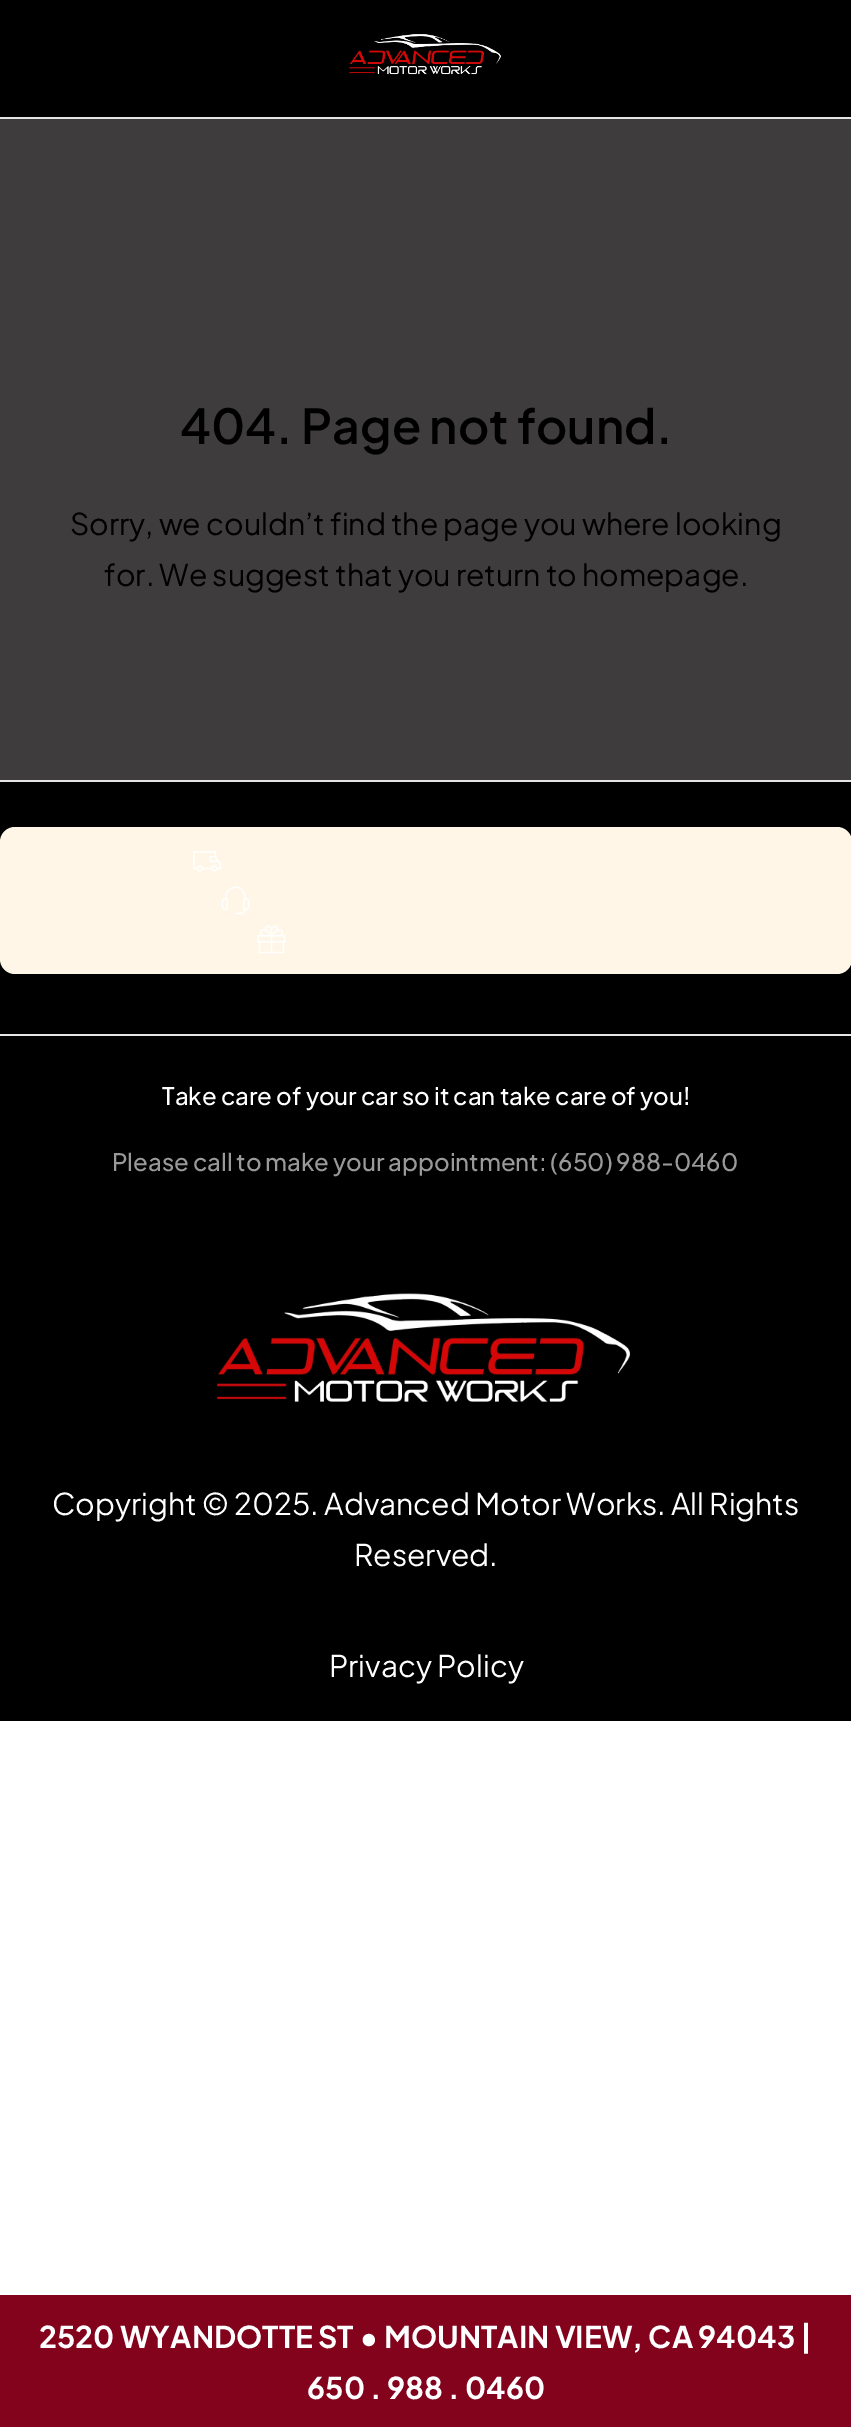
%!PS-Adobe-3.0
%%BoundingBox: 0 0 851 2427
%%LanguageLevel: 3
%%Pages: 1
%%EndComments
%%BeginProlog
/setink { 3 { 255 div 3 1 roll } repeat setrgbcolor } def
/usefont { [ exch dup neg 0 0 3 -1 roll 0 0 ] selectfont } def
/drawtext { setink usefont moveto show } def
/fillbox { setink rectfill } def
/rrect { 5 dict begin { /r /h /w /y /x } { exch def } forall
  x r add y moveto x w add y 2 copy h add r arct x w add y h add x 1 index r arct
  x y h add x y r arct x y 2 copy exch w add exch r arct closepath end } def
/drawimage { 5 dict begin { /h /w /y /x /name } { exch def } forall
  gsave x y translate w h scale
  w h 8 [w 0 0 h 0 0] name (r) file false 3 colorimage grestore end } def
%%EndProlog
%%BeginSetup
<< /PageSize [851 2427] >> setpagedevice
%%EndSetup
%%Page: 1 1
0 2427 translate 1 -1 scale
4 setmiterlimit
0 0 851 2427 255 255 255 fillbox
0 0 851 117 0 0 0 fillbox
(assets/img1.rgb) 349 34 152 41 drawimage
0 119 851 661 62 60 60 fillbox
0 117 851 2 229 229 229 fillbox
(404. Page not found.) 180 444 /PlusJakartaSans-SemiBold 48 0 0 0 drawtext
(Sorry, we couldn’t find the page you where looking) 70 535 /PlusJakartaSans-Regular 30 0 0 0 drawtext
(for. We suggest that you return to homepage.) 104 586 /PlusJakartaSans-Regular 30 0 0 0 drawtext
0 782 851 939 0 0 0 fillbox
0 780 851 2 229 229 229 fillbox
255 246 231 setink
0 827 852 147 15 rrect fill
(assets/img2.rgb) 193 851 28 21 drawimage
(assets/img3.rgb) 221 886 29 29 drawimage
(assets/img4.rgb) 257 925 29 29 drawimage
0 1034 851 2 229 229 229 fillbox
(Take care of your car so it can take care of you!) 162 1105 /PlusJakartaSans-Medium 24 255 255 255 drawtext
153 153 153 setink
112 1171 moveto -0.25 0 32 (Please call to make your appointment: \(650\) 988-0460) widthshow
(assets/img5.rgb) 216 1293 414 109 drawimage
(Copyright © 2025. Advanced Motor Works. All Rights) 52 1515 /PlusJakartaSans-Regular 30 255 255 255 drawtext
(Reserved.) 354 1566 /PlusJakartaSans-Regular 30 255 255 255 drawtext
(Privacy Policy) 329 1677 /PlusJakartaSans-Regular 30 255 255 255 drawtext
0 2295 851 132 131 2 28 fillbox
(2520 WYANDOTTE ST • MOUNTAIN VIEW, CA 94043 |) 39 2348 /PlusJakartaSans-Bold 30 255 255 255 drawtext
(650 . 988 . 0460) 307 2399 /PlusJakartaSans-Bold 30 255 255 255 drawtext
showpage
%%EOF
